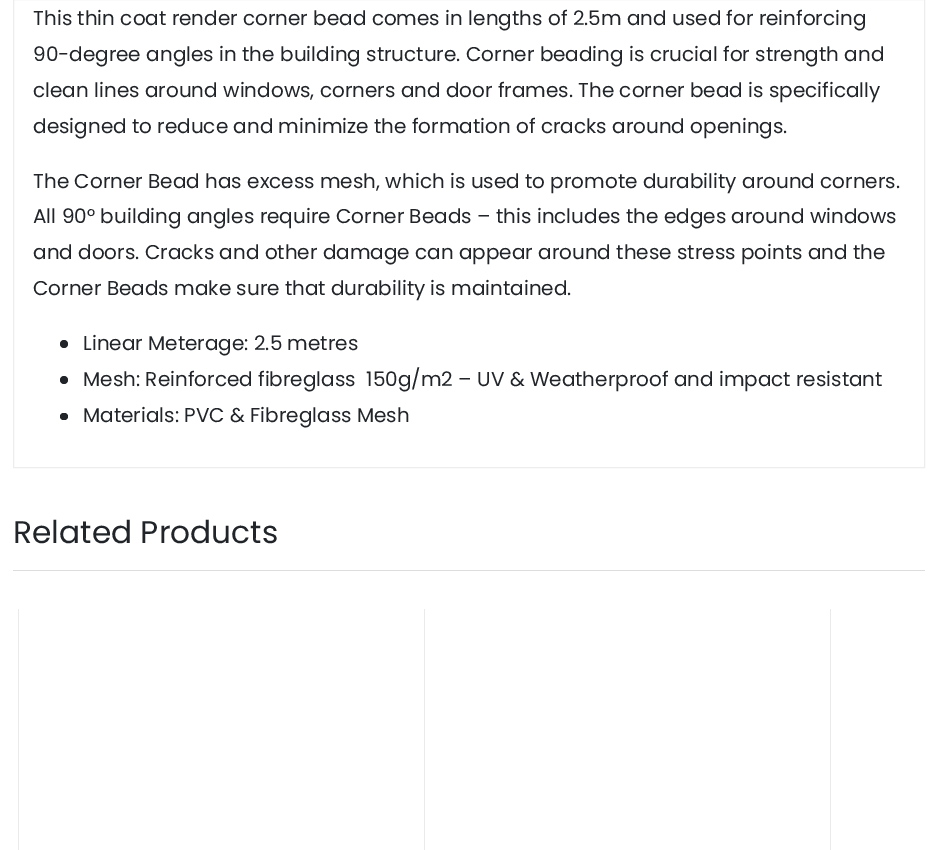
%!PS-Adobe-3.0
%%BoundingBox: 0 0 937 850
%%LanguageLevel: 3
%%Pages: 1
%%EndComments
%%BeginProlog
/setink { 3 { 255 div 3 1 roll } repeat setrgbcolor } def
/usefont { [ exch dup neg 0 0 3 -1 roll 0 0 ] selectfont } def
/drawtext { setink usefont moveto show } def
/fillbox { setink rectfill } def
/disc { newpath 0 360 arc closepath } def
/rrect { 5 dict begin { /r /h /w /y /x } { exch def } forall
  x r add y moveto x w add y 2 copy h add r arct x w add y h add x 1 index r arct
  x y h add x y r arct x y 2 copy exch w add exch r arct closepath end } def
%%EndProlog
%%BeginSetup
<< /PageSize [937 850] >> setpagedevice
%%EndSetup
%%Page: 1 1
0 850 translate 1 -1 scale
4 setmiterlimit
0 0 937 850 255 255 255 fillbox
237 237 237 setink
13.5 -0.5 911 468 rectstroke
(This thin coat render corner bead comes in lengths of 2.5m and used for reinforcing) 33 25 /Poppins-Regular 20 33 37 41 drawtext
(90-degree angles in the building structure. Corner beading is crucial for strength and) 33 61 /Poppins-Regular 20 33 37 41 drawtext
(clean lines around windows, corners and door frames. The corner bead is specifically) 33 97 /Poppins-Regular 20 33 37 41 drawtext
(designed to reduce and minimize the formation of cracks around openings.) 33 133 /Poppins-Regular 20 33 37 41 drawtext
(The Corner Bead has excess mesh, which is used to promote durability around corners.) 33 188 /Poppins-Regular 20 33 37 41 drawtext
(All 90° building angles require Corner Beads – this includes the edges around windows) 33 223 /Poppins-Regular 20 33 37 41 drawtext
(and doors. Cracks and other damage can appear around these stress points and the) 33 259 /Poppins-Regular 20 33 37 41 drawtext
(Corner Beads make sure that durability is maintained.) 33 295 /Poppins-Regular 20 33 37 41 drawtext
64 344 4 disc fill
(Linear Meterage: 2.5 metres) 83 350 /Poppins-Regular 20 33 37 41 drawtext
64 380 4 disc fill
(Mesh: Reinforced fibreglass  150g/m2 – UV & Weatherproof and impact resistant) 83 386 /Poppins-Regular 20 33 37 41 drawtext
60 413 8 7 3.5 rrect fill
(Materials: PVC & Fibreglass Mesh) 83 422 /Poppins-Regular 20 33 37 41 drawtext
13 570 912 1 221 221 221 fillbox
(Related Products) 13 543 /Poppins-Regular 31.25 33 37 41 drawtext
18 609 1 241 234 234 234 fillbox
424 609 1 241 234 234 234 fillbox
830 609 1 241 234 234 234 fillbox
showpage
%%EOF
